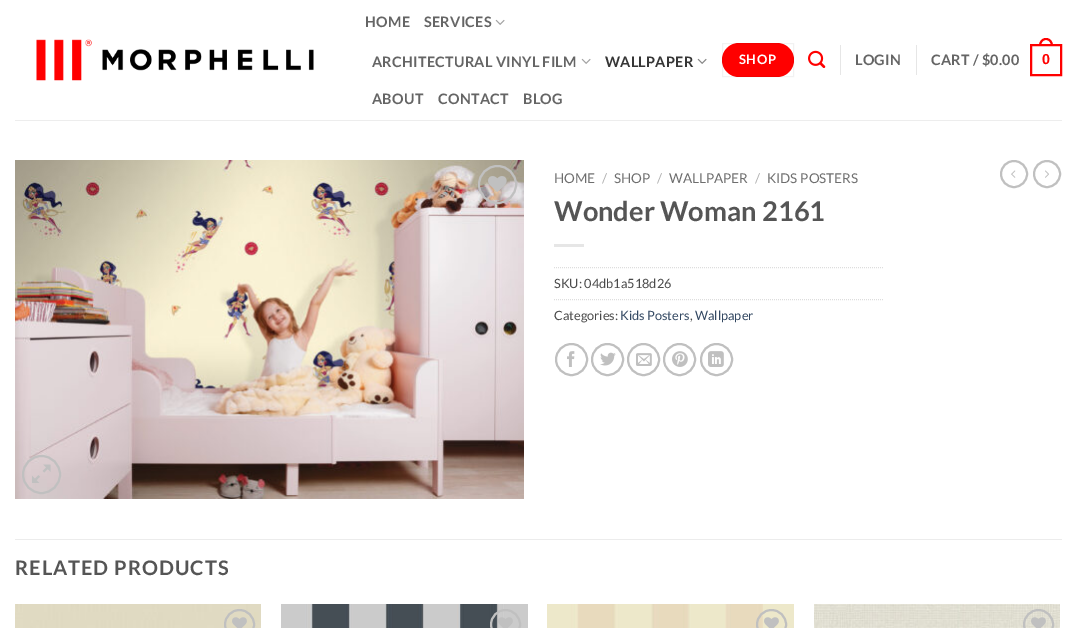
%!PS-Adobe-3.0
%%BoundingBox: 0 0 1077 628
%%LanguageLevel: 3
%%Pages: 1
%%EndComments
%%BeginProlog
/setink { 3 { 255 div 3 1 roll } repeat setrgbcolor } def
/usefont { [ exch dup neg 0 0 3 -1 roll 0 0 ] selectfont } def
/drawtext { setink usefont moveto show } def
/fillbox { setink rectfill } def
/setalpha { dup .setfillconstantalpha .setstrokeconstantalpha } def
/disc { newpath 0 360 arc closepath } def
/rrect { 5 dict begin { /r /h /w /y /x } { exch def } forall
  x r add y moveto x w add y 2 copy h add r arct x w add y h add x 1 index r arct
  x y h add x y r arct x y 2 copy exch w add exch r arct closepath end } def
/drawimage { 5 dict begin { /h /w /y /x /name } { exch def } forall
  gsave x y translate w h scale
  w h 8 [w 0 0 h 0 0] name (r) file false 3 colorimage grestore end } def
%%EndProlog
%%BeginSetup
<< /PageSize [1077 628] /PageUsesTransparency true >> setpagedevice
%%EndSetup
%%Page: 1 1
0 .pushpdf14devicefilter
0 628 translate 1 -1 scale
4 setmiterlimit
0 0 1077 628 255 255 255 fillbox
(assets/img1.rgb) 36 39 278 42 drawimage
/Lato-Bold 14.4 usefont
101 101 101 setink
365 27 moveto 0.25 0 (HOME) ashow
424 27 moveto 0.25 0 (SERVICES) ashow
(assets/img2.rgb) 495 19 10 6 drawimage
372 67 moveto 0.25 0 (ARCHITECTURAL VINYL FILM) ashow
(assets/img2.rgb) 581 58 10 6 drawimage
54 54 54 setink
605 67 moveto 0.25 0 (WALLPAPER) ashow
(assets/img3.rgb) 697 58 10 6 drawimage
101 101 101 setink
372 104 moveto 0.25 0 (ABOUT) ashow
438 104 moveto 0.25 0 (CONTACT) ashow
523 104 moveto 0.25 0 (BLOG) ashow
255 0 0 setink
722 43 72 34 17 rrect fill
0.05 setalpha
0 0 0 setink
722.5 43.5 71 33 rectstroke
/Lato-Bold 13 usefont
1 setalpha
255 255 255 setink
739 64 moveto 0.5 0 (SHOP) ashow
(assets/img4.rgb) 808 50 18 18 drawimage
840 45 1 30 230 230 230 fillbox
/Lato-Bold 14.4 usefont
101 101 101 setink
855 65 moveto 0.25 0 (LOGIN) ashow
916 45 1 30 230 230 230 fillbox
101 101 101 setink
931 65 moveto 0.25 0 (CART / $0.00) ashow
255 0 0 setink
2 setlinewidth
1031 45 30 30 rectstroke
1046 38 moveto 1050.5 38 1053 42 1053 46 curveto 1039 46 lineto 1039 42 1041.5 38 1046 38 curveto closepath 1046 40 moveto 1049.5 40 1051 43 1051 46 curveto 1041 46 lineto 1041 43 1042.5 40 1046 40 curveto closepath eofill
/LiberationSans-Bold 14.4 usefont
1042 64 moveto 0.25 0 (0) ashow
15 120 1047 1 237 237 237 fillbox
(assets/img5.rgb) 15 160 509 339 drawimage
192 192 192 setink
497.5 184.5 18.5 disc stroke
(assets/img6.rgb) 488 176 19 16 drawimage
41.5 474.5 18.5 disc stroke
(assets/img7.rgb) 32 464 19 19 drawimage
(HOME) 554 183 /Lato-Regular 13.5 110 110 110 drawtext
(/) 602 183 /Lato-Regular 13.5 178 178 178 drawtext
(SHOP) 614 183 /Lato-Regular 13.5 110 110 110 drawtext
(/) 657 183 /Lato-Regular 13.5 178 178 178 drawtext
(WALLPAPER) 669 183 /Lato-Regular 13.5 110 110 110 drawtext
(/) 755 183 /Lato-Regular 13.5 178 178 178 drawtext
(KIDS POSTERS) 767 183 /Lato-Regular 13.5 110 110 110 drawtext
(Wonder Woman 2161) 554 221 /Lato-Bold 27.25 85 85 85 drawtext
554 244 30 3 230 230 230 fillbox
221 221 221 setink
1 setlinewidth
[1 1] 0 setdash
554 267.5 moveto 883 267.5 lineto stroke
(SKU: 04db1a518d26) 554 288 /Lato-Regular 12.75 74 74 74 drawtext
221 221 221 setink
554 299.5 moveto 883 299.5 lineto stroke
(Categories:) 554 320 /Lato-Regular 12.75 74 74 74 drawtext
(Kids Posters) 620 320 /Lato-Regular 12.75 51 72 98 drawtext
(,) 690 320 /Lato-Regular 12.75 74 74 74 drawtext
(Wallpaper) 695 320 /Lato-Regular 12.75 51 72 98 drawtext
192 192 192 setink
2 setlinewidth
[] 0 setdash
571.5 359.5 15.5 disc stroke
(assets/img8.rgb) 567 351 8 16 drawimage
607.5 359.5 15.5 disc stroke
(assets/img9.rgb) 600 352 16 14 drawimage
643.5 359.5 15.5 disc stroke
(assets/img10.rgb) 636 353 16 13 drawimage
679.5 359.5 15.5 disc stroke
(assets/img11.rgb) 672 351 16 16 drawimage
716.5 359.5 15.5 disc stroke
(assets/img12.rgb) 708 351 16 16 drawimage
1014 174 13 disc stroke
(assets/img13.rgb) 1011 170 5 8 drawimage
1047 174 13 disc stroke
(assets/img14.rgb) 1045 170 4 8 drawimage
15 539 1047 1 236 236 236 fillbox
/Lato-Bold 20 usefont
85 85 85 setink
15 575 moveto 1 0 (RELATED PRODUCTS) ashow
(assets/img15.rgb) 15 604 246 24 drawimage
192 192 192 setink
239.5 624.5 14.5 disc stroke
(assets/img16.rgb) 232 617 15 11 drawimage
(assets/img17.rgb) 281 604 247 24 drawimage
505.5 624.5 14.5 disc stroke
(assets/img18.rgb) 498 617 15 11 drawimage
(assets/img19.rgb) 547 604 247 24 drawimage
771.5 624.5 14.5 disc stroke
(assets/img20.rgb) 764 617 15 11 drawimage
(assets/img21.rgb) 814 604 246 24 drawimage
1038.5 624.5 14.5 disc stroke
(assets/img22.rgb) 1031 617 15 11 drawimage
.poppdf14devicefilter showpage
%%EOF
